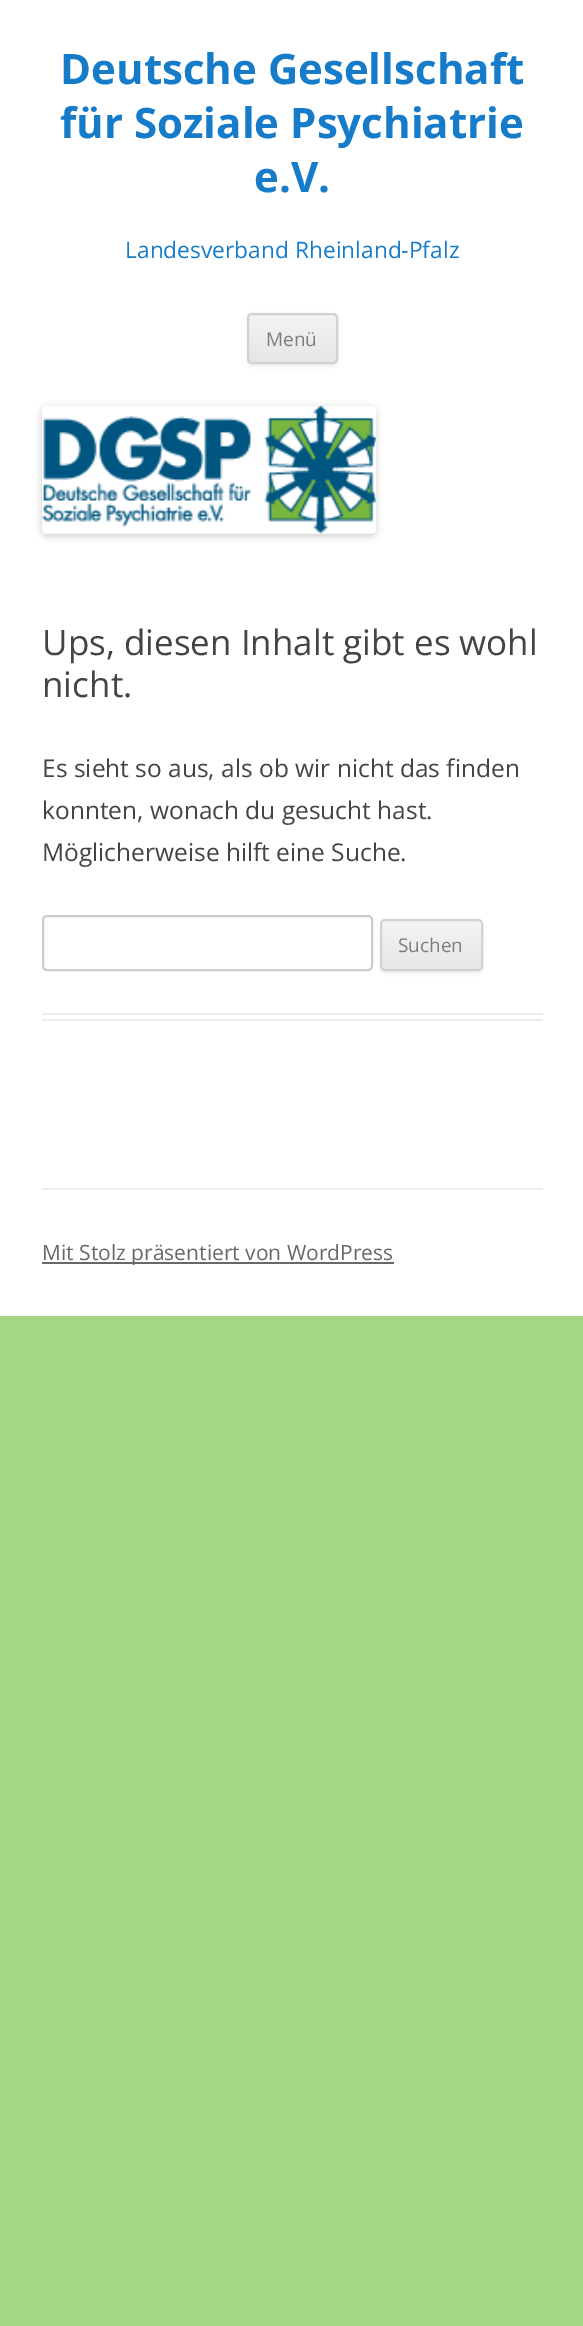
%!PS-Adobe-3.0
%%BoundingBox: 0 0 583 2326
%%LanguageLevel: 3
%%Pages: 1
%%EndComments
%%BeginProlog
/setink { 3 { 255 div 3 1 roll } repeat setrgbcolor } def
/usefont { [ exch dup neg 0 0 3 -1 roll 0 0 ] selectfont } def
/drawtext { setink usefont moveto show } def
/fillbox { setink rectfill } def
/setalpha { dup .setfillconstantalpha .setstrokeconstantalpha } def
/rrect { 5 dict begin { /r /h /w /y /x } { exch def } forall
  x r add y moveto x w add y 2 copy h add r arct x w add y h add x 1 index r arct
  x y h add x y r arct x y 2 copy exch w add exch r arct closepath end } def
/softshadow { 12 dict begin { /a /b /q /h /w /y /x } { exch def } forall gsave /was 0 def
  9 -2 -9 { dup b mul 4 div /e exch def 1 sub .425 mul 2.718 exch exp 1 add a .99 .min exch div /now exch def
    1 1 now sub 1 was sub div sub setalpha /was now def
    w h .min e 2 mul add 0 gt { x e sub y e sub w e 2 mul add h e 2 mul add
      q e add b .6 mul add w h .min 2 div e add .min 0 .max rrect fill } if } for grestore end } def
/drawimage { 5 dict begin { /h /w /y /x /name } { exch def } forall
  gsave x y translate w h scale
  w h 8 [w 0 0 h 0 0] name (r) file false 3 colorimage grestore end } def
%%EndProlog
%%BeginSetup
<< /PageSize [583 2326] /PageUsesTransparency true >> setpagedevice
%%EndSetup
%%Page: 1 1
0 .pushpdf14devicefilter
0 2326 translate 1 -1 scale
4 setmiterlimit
0 0 583 2326 165 214 134 fillbox
0 0 583 1316 255 255 255 fillbox
(Deutsche Gesellschaft) 60 84 /OpenSans-Bold 42 22 123 201 drawtext
(für Soziale Psychiatrie) 60 138 /OpenSans-Bold 42 22 123 201 drawtext
(e.V.) 254 192 /OpenSans-Bold 42 22 123 201 drawtext
(Landesverband Rheinland-Pfalz) 125 258 /OpenSans-Regular 22.75 22 123 201 drawtext
64 64 64 setink
247 315 91 51 5 2 0.1 softshadow
gsave
247 313 91 51 5 rrect clip newpath
gsave 247 315 moveto 338 315 lineto 338 362 lineto 247 362 lineto closepath clip newpath
<< /ShadingType 2 /ColorSpace /DeviceRGB /Coords [292 315 292 362] /Extend [true true] /Function << /FunctionType 2 /Domain [0 1] /C0 [0.957 0.957 0.957] /C1 [0.902 0.902 0.902] /N 1 >> >> shfill grestore
grestore
210 210 210 setink
2 setlinewidth
248 314 89 49 4 rrect stroke
(Menü) 266 346 /OpenSans-Regular 19 124 124 124 drawtext
0 0 0 setink
42 408 334 128 5 3.5 0.2 softshadow
(assets/img1.rgb) 42 406 335 128 drawimage
42 1013 501 2 237 237 237 fillbox
42 1019 501 2 237 237 237 fillbox
(Ups, diesen Inhalt gibt es wohl) 42 655 /OpenSans-Regular 35 68 68 68 drawtext
(nicht.) 42 697 /OpenSans-Regular 35 68 68 68 drawtext
(Es sieht so aus, als ob wir nicht das finden) 42 777 /OpenSans-Regular 24.5 68 68 68 drawtext
(konnten, wonach du gesucht hast.) 42 819 /OpenSans-Regular 24.5 68 68 68 drawtext
(Möglicherweise hilft eine Suche.) 42 861 /OpenSans-Regular 24.5 68 68 68 drawtext
204 204 204 setink
43 916 329 54 4 rrect stroke
64 64 64 setink
380 921 103 52 5 2 0.1 softshadow
gsave
380 919 103 52 5 rrect clip newpath
gsave 380 921 moveto 483 921 lineto 483 970 lineto 380 970 lineto closepath clip newpath
<< /ShadingType 2 /ColorSpace /DeviceRGB /Coords [431 921 431 970] /Extend [true true] /Function << /FunctionType 2 /Domain [0 1] /C0 [0.957 0.957 0.957] /C1 [0.902 0.902 0.902] /N 1 >> >> shfill grestore
grestore
210 210 210 setink
381 920 101 50 4 rrect stroke
(Suchen) 398 952 /OpenSans-Regular 19 124 124 124 drawtext
42 1188 501 2 237 237 237 fillbox
42 1262 352 2 104 104 104 fillbox
(Mit Stolz präsentiert von WordPress) 42 1260 /OpenSans-Regular 21 104 104 104 drawtext
.poppdf14devicefilter showpage
%%EOF
